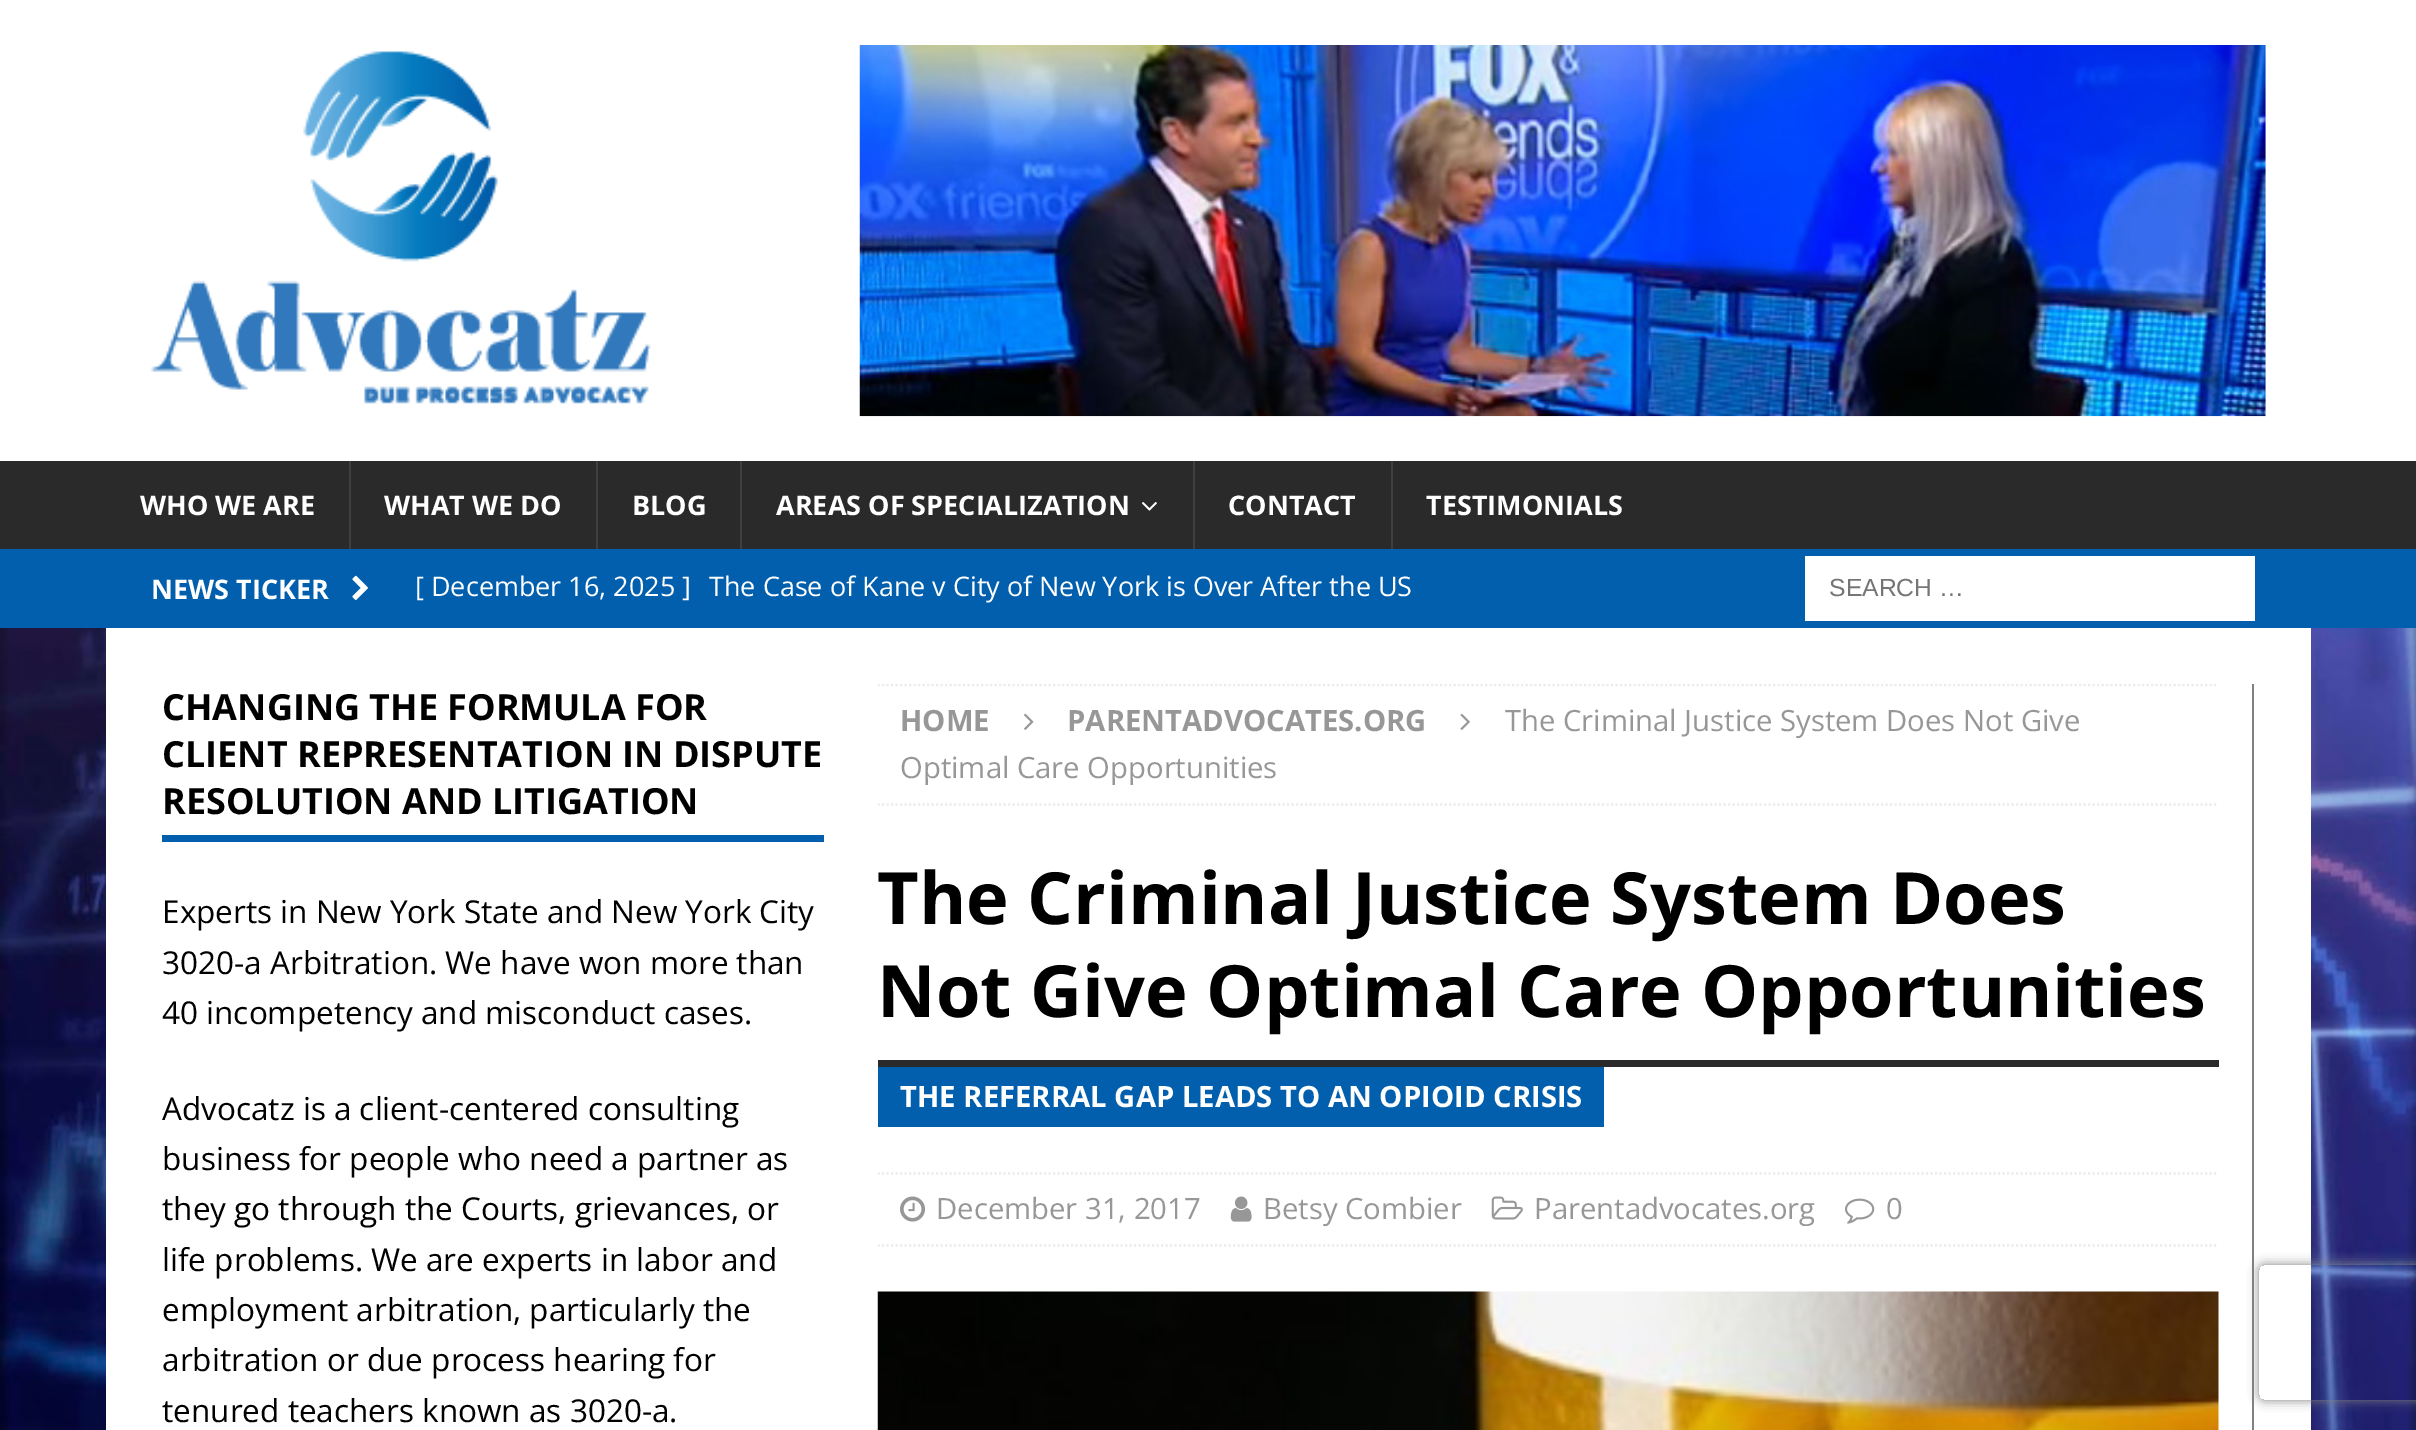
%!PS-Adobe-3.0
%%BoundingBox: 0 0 2416 1430
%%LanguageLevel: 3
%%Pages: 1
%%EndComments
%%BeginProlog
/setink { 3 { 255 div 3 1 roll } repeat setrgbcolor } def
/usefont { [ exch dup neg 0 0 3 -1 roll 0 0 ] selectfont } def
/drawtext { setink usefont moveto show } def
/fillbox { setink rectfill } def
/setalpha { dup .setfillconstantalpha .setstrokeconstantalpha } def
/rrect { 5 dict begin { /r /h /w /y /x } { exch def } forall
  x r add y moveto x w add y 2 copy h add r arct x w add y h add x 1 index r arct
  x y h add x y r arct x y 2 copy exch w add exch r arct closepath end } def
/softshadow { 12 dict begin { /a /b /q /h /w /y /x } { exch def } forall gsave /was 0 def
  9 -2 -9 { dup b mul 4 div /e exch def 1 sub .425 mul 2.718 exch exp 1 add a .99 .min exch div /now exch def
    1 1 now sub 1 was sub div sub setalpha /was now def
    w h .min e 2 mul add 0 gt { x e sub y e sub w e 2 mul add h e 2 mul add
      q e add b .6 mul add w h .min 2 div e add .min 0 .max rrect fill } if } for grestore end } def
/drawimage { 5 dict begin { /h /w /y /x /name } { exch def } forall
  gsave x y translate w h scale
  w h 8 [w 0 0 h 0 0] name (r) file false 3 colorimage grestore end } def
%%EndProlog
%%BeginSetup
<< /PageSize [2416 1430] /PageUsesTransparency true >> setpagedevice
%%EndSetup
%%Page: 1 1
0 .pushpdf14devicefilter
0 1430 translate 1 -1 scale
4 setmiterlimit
0 0 2416 1430 255 255 255 fillbox
(assets/img1.rgb) 0 628 2416 802 drawimage
(assets/img2.rgb) 150 51 501 353 drawimage
(assets/img3.rgb) 859 45 1407 372 drawimage
0 461 2416 88 42 42 42 fillbox
(WHO WE ARE) 140 515 /OpenSans-Bold 27 255 255 255 drawtext
349 461 2 88 63 63 63 fillbox
(WHAT WE DO) 384 515 /OpenSans-Bold 27 255 255 255 drawtext
596 461 2 88 63 63 63 fillbox
(BLOG) 632 515 /OpenSans-Bold 27 255 255 255 drawtext
740 461 2 88 63 63 63 fillbox
(AREAS OF SPECIALIZATION) 776 515 /OpenSans-Bold 27 255 255 255 drawtext
(assets/img4.rgb) 1142 502 15 9 drawimage
1193 461 2 88 63 63 63 fillbox
(CONTACT) 1228 515 /OpenSans-Bold 27 255 255 255 drawtext
1391 461 2 88 63 63 63 fillbox
(TESTIMONIALS) 1426 515 /OpenSans-Bold 27 255 255 255 drawtext
0 549 2416 79 1 95 173 fillbox
(NEWS TICKER) 151 599 /OpenSans-Bold 27 255 255 255 drawtext
(assets/img5.rgb) 352 575 16 25 drawimage
([ December 16, 2025 ]) 415 596 /OpenSans-Regular 27 255 255 255 drawtext
(The Case of Kane v City of New York is Over After the US) 709 596 /OpenSans-Regular 27 255 255 255 drawtext
1805 556 450 65 255 255 255 fillbox
(SEARCH …) 1829 596 /LiberationSans-Regular 24.75 117 117 117 drawtext
106 628 2205 802 255 255 255 fillbox
162 835 662 7 1 95 173 fillbox
(CHANGING THE FORMULA FOR) 162 720 /OpenSans-Bold 36 0 0 0 drawtext
(CLIENT REPRESENTATION IN DISPUTE) 162 767 /OpenSans-Bold 36 0 0 0 drawtext
(RESOLUTION AND LITIGATION) 162 814 /OpenSans-Bold 36 0 0 0 drawtext
(Experts in New York State and New York City) 162 923 /OpenSans-Regular 31.5 0 0 0 drawtext
(3020-a Arbitration. We have won more than) 162 974 /OpenSans-Regular 31.5 0 0 0 drawtext
(40 incompetency and misconduct cases.) 162 1024 /OpenSans-Regular 31.5 0 0 0 drawtext
(Advocatz is a client-centered consulting) 162 1120 /OpenSans-Regular 31.5 0 0 0 drawtext
(business for people who need a partner as) 162 1170 /OpenSans-Regular 31.5 0 0 0 drawtext
(they go through the Courts, grievances, or) 162 1220 /OpenSans-Regular 31.5 0 0 0 drawtext
(life problems. We are experts in labor and) 162 1271 /OpenSans-Regular 31.5 0 0 0 drawtext
(employment arbitration, particularly the) 162 1321 /OpenSans-Regular 31.5 0 0 0 drawtext
(arbitration or due process hearing for) 162 1371 /OpenSans-Regular 31.5 0 0 0 drawtext
(tenured teachers known as 3020-a.) 162 1422 /OpenSans-Regular 31.5 0 0 0 drawtext
2252 684 2 746 128 128 128 fillbox
gsave
878 684 1374 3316 rectclip
235 235 235 setink
2.2 setlinewidth
[2.25 2.25] 0 setdash
877.5 685 moveto 2218.5 685 lineto stroke
877.5 804.5 moveto 2218.5 804.5 lineto stroke
grestore
(HOME) 900 731 /OpenSans-Bold 29.25 151 151 151 drawtext
(assets/img6.rgb) 1024 713 10 17 drawimage
(PARENTADVOCATES.ORG) 1067 731 /OpenSans-Bold 29.25 151 151 151 drawtext
(assets/img7.rgb) 1460 713 10 17 drawimage
(The Criminal Justice System Does Not Give) 1505 731 /OpenSans-Regular 29.25 151 151 151 drawtext
(Optimal Care Opportunities) 900 778 /OpenSans-Regular 29.25 151 151 151 drawtext
(The Criminal Justice System Does) 877 924 /OpenSans-Bold 72 0 0 0 drawtext
(Not Give Optimal Care Opportunities) 877 1017 /OpenSans-Bold 72 0 0 0 drawtext
878 1060 1341 7 42 42 42 fillbox
878 1067 726 60 1 95 173 fillbox
(THE REFERRAL GAP LEADS TO AN OPIOID CRISIS) 900 1107 /OpenSans-Bold 29.25 255 255 255 drawtext
gsave
878 684 1374 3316 rectclip
235 235 235 setink
2.2 setlinewidth
[2.25 2.25] 0 setdash
877.5 1173.5 moveto 2218.5 1173.5 lineto stroke
877.5 1245.5 moveto 2218.5 1245.5 lineto stroke
grestore
(assets/img8.rgb) 900 1196 26 26 drawimage
(December 31, 2017) 936 1219 /OpenSans-Regular 29.25 151 151 151 drawtext
(assets/img9.rgb) 1230 1196 22 26 drawimage
(Betsy Combier) 1263 1219 /OpenSans-Regular 29.25 151 151 151 drawtext
(assets/img10.rgb) 1491 1196 32 24 drawimage
(Parentadvocates.org) 1534 1219 /OpenSans-Regular 29.25 151 151 151 drawtext
(assets/img11.rgb) 1845 1198 30 26 drawimage
(0) 1886 1219 /OpenSans-Regular 29.25 151 151 151 drawtext
(assets/img12.rgb) 877 1291 1342 139 drawimage
gsave
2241 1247 moveto 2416 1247 lineto 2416 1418 lineto 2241 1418 lineto closepath 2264 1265 moveto 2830 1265 lineto 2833 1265 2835 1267 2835 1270 curveto 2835 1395 lineto 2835 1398 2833 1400 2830 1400 curveto 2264 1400 lineto 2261 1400 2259 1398 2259 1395 curveto 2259 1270 lineto 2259 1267 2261 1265 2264 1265 curveto closepath eoclip newpath
128 128 128 setink
2259 1265 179 135 5 5.5 1 softshadow
grestore
.poppdf14devicefilter showpage
%%EOF
